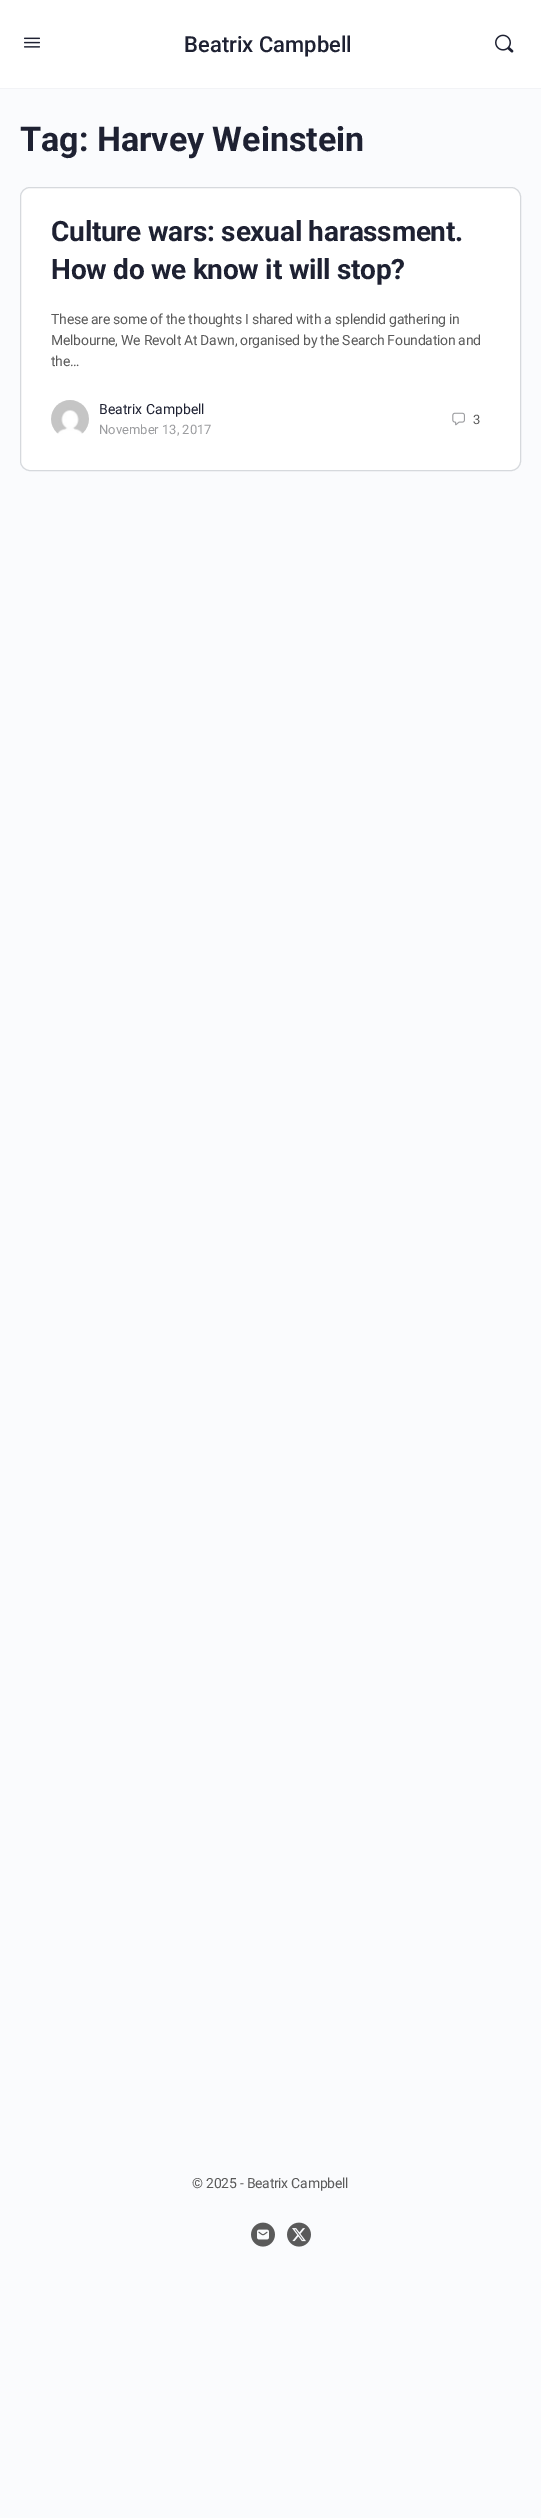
%!PS-Adobe-3.0
%%BoundingBox: 0 0 541 2518
%%LanguageLevel: 3
%%Pages: 1
%%EndComments
%%BeginProlog
/setink { 3 { 255 div 3 1 roll } repeat setrgbcolor } def
/usefont { [ exch dup neg 0 0 3 -1 roll 0 0 ] selectfont } def
/drawtext { setink usefont moveto show } def
/fillbox { setink rectfill } def
/rrect { 5 dict begin { /r /h /w /y /x } { exch def } forall
  x r add y moveto x w add y 2 copy h add r arct x w add y h add x 1 index r arct
  x y h add x y r arct x y 2 copy exch w add exch r arct closepath end } def
/drawimage { 5 dict begin { /h /w /y /x /name } { exch def } forall
  gsave x y translate w h scale
  w h 8 [w 0 0 h 0 0] name (r) file false 3 colorimage grestore end } def
%%EndProlog
%%BeginSetup
<< /PageSize [541 2518] >> setpagedevice
%%EndSetup
%%Page: 1 1
0 2518 translate 1 -1 scale
4 setmiterlimit
0 0 541 2518 250 251 253 fillbox
0 88 541 1 242 243 246 fillbox
0 0 541 88 255 255 255 fillbox
(assets/img1.rgb) 24 37 16 11 drawimage
(Beatrix Campbell) 184 52 /Roboto-Medium 22 30 33 50 drawtext
(assets/img2.rgb) 495 34 19 19 drawimage
(Tag: Harvey Weinstein) 20 151 /Roboto-Bold 34 30 33 50 drawtext
255 255 255 setink
20.5 187.5 500 283 9.5 rrect gsave fill grestore
214 217 221 setink
stroke
/Roboto-Bold 28 usefont
30 33 50 setink
51 241 moveto -0.25 0 (Culture wars: sexual harassment.) ashow
51 279 moveto -0.25 0 (How do we know it will stop?) ashow
/Roboto-Regular 14 usefont
90 90 90 setink
51 324 moveto -0.25 0 (These are some of the thoughts I shared with a splendid gathering in) ashow
51 345 moveto -0.25 0 (Melbourne, We Revolt At Dawn, organised by the Search Foundation and) ashow
51 366 moveto -0.25 0 (the…) ashow
(assets/img3.rgb) 51 400 38 34 drawimage
(Beatrix Campbell) 99 414 /Roboto-Regular 14 30 33 50 drawtext
(November 13, 2017) 99 434 /Roboto-Regular 13 155 156 159 drawtext
(assets/img4.rgb) 452 412 13 14 drawimage
(3) 473 424 /Roboto-Regular 13 90 90 90 drawtext
/Roboto-Regular 14 usefont
192 2188 moveto -0.25 0 (© 2025 - Beatrix Campbell) ashow
(assets/img5.rgb) 251 2222 24 25 drawimage
(assets/img6.rgb) 287 2222 24 25 drawimage
showpage
%%EOF
